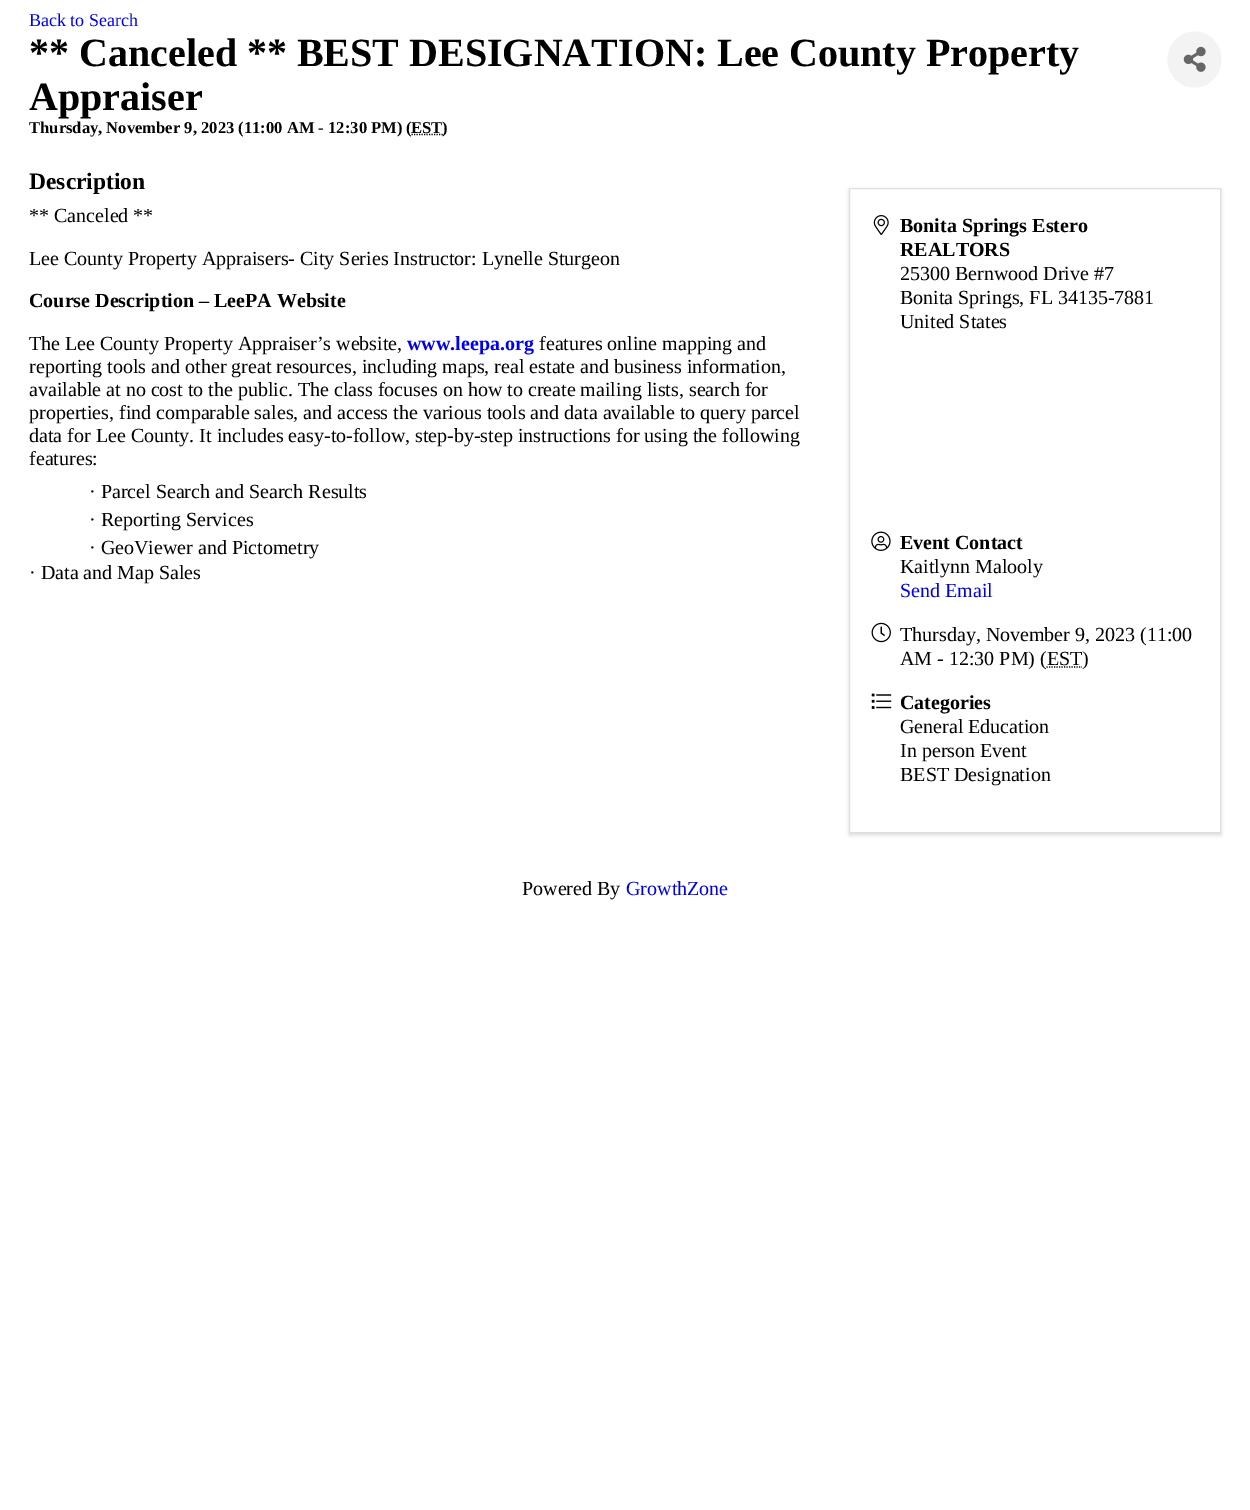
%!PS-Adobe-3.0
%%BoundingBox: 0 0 1250 1510
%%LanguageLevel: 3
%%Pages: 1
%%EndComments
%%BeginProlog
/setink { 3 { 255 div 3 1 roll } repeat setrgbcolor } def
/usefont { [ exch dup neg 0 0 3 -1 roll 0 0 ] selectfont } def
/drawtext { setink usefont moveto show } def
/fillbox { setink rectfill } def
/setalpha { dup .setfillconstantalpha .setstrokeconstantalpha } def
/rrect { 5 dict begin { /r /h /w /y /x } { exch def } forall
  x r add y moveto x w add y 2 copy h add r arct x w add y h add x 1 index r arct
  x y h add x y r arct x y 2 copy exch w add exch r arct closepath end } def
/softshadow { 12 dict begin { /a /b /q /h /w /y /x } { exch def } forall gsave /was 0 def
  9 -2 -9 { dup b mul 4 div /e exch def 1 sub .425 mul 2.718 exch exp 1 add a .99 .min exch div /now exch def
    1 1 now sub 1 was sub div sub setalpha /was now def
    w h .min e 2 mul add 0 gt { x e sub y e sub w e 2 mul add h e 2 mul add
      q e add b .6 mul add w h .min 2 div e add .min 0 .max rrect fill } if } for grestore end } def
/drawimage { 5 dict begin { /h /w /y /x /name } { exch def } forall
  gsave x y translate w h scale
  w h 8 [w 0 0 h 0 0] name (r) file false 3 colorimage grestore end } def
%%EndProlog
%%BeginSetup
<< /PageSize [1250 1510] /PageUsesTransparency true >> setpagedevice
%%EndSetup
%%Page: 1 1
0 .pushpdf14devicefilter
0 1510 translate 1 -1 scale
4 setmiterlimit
0 0 1250 1510 255 255 255 fillbox
(Back to Search) 29 26 /LiberationSerif-Regular 18 0 0 238 drawtext
(** Canceled ** BEST DESIGNATION: Lee County Property) 29 66 /LiberationSerif-Bold 40 0 0 0 drawtext
(Appraiser) 29 110 /LiberationSerif-Bold 40 0 0 0 drawtext
(Thursday, November 9, 2023 \(11:00 AM - 12:30 PM\) \() 29 133 /LiberationSerif-Bold 16.6 0 0 0 drawtext
1.2 setlinewidth
[1.25 1.25] 0 setdash
411.5 134.5 moveto 443 134.5 lineto stroke
(EST\)) 411 133 /LiberationSerif-Bold 16.6 0 0 0 drawtext
243 243 243 setink
1194.5 31.5 moveto 1209.5 31.5 1221.5 44 1221.5 59.5 curveto 1221.5 75 1209.5 87.5 1194.5 87.5 curveto 1179.5 87.5 1167.5 75 1167.5 59.5 curveto 1167.5 44 1179.5 31.5 1194.5 31.5 curveto closepath fill
(assets/img1.rgb) 1183 46 23 26 drawimage
(Description) 29 189 /LiberationSerif-Bold 23.5 0 0 0 drawtext
(** Canceled **) 29 222 /LiberationSerif-Regular 20 0 0 0 drawtext
(Lee County Property Appraisers- City Series Instructor: Lynelle Sturgeon) 29 265 /LiberationSerif-Regular 20 0 0 0 drawtext
(Course Description – LeePA Website) 29 307 /LiberationSerif-Bold 20 0 0 0 drawtext
(The Lee County Property Appraiser’s website,) 29 350 /LiberationSerif-Regular 20 0 0 0 drawtext
(www.leepa.org) 407 350 /LiberationSerif-Bold 20 0 0 238 drawtext
(features online mapping and) 539 350 /LiberationSerif-Regular 20 0 0 0 drawtext
(reporting tools and other great resources, including maps, real estate and business information,) 29 373 /LiberationSerif-Regular 20 0 0 0 drawtext
(available at no cost to the public. The class focuses on how to create mailing lists, search for) 29 396 /LiberationSerif-Regular 20 0 0 0 drawtext
(properties, find comparable sales, and access the various tools and data available to query parcel) 29 419 /LiberationSerif-Regular 20 0 0 0 drawtext
(data for Lee County. It includes easy-to-follow, step-by-step instructions for using the following) 29 442 /LiberationSerif-Regular 20 0 0 0 drawtext
(features:) 29 465 /LiberationSerif-Regular 20 0 0 0 drawtext
(· Parcel Search and Search Results) 89 498 /LiberationSerif-Regular 20 0 0 0 drawtext
(· Reporting Services) 89 526 /LiberationSerif-Regular 20 0 0 0 drawtext
(· GeoViewer and Pictometry) 89 554 /LiberationSerif-Regular 20 0 0 0 drawtext
(· Data and Map Sales) 29 579 /LiberationSerif-Regular 20 0 0 0 drawtext
849 190 372 645 0 2 0.15 softshadow
255 255 255 setink
849.5 188.5 moveto 1220.5 188.5 lineto 1220.5 832.5 lineto 849.5 832.5 lineto closepath gsave fill grestore
223 223 223 setink
1 setlinewidth
[] 0 setdash
stroke
(assets/img2.rgb) 873 215 16 20 drawimage
(Bonita Springs Estero) 900 232 /LiberationSerif-Bold 20 0 0 0 drawtext
(REALTORS) 900 256 /LiberationSerif-Bold 20 0 0 0 drawtext
(25300 Bernwood Drive #7) 900 280 /LiberationSerif-Regular 20 0 0 0 drawtext
(Bonita Springs, FL 34135-7881) 900 304 /LiberationSerif-Regular 20 0 0 0 drawtext
(United States) 900 328 /LiberationSerif-Regular 20 0 0 0 drawtext
(assets/img3.rgb) 871 531 20 20 drawimage
(Event Contact) 900 549 /LiberationSerif-Bold 20 0 0 0 drawtext
(Kaitlynn Malooly) 900 573 /LiberationSerif-Regular 20 0 0 0 drawtext
(Send Email) 900 597 /LiberationSerif-Regular 20 0 0 238 drawtext
(assets/img4.rgb) 871 622 20 21 drawimage
(Thursday, November 9, 2023 \(11:00) 900 641 /LiberationSerif-Regular 20 0 0 0 drawtext
(AM - 12:30 PM\) \(EST\)) 900 665 /LiberationSerif-Regular 20 0 0 0 drawtext
1.2 setlinewidth
[1.25 1.25] 0 setdash
1046.5 667 moveto 1082 667 lineto stroke
(assets/img5.rgb) 871 693 21 16 drawimage
(Categories) 900 709 /LiberationSerif-Bold 20 0 0 0 drawtext
(General Education) 900 733 /LiberationSerif-Regular 20 0 0 0 drawtext
(In person Event) 900 757 /LiberationSerif-Regular 20 0 0 0 drawtext
(BEST Designation) 900 781 /LiberationSerif-Regular 20 0 0 0 drawtext
(Powered By) 522 895 /LiberationSerif-Regular 20 0 0 0 drawtext
(GrowthZone) 626 895 /LiberationSerif-Regular 20 0 0 238 drawtext
.poppdf14devicefilter showpage
%%EOF
